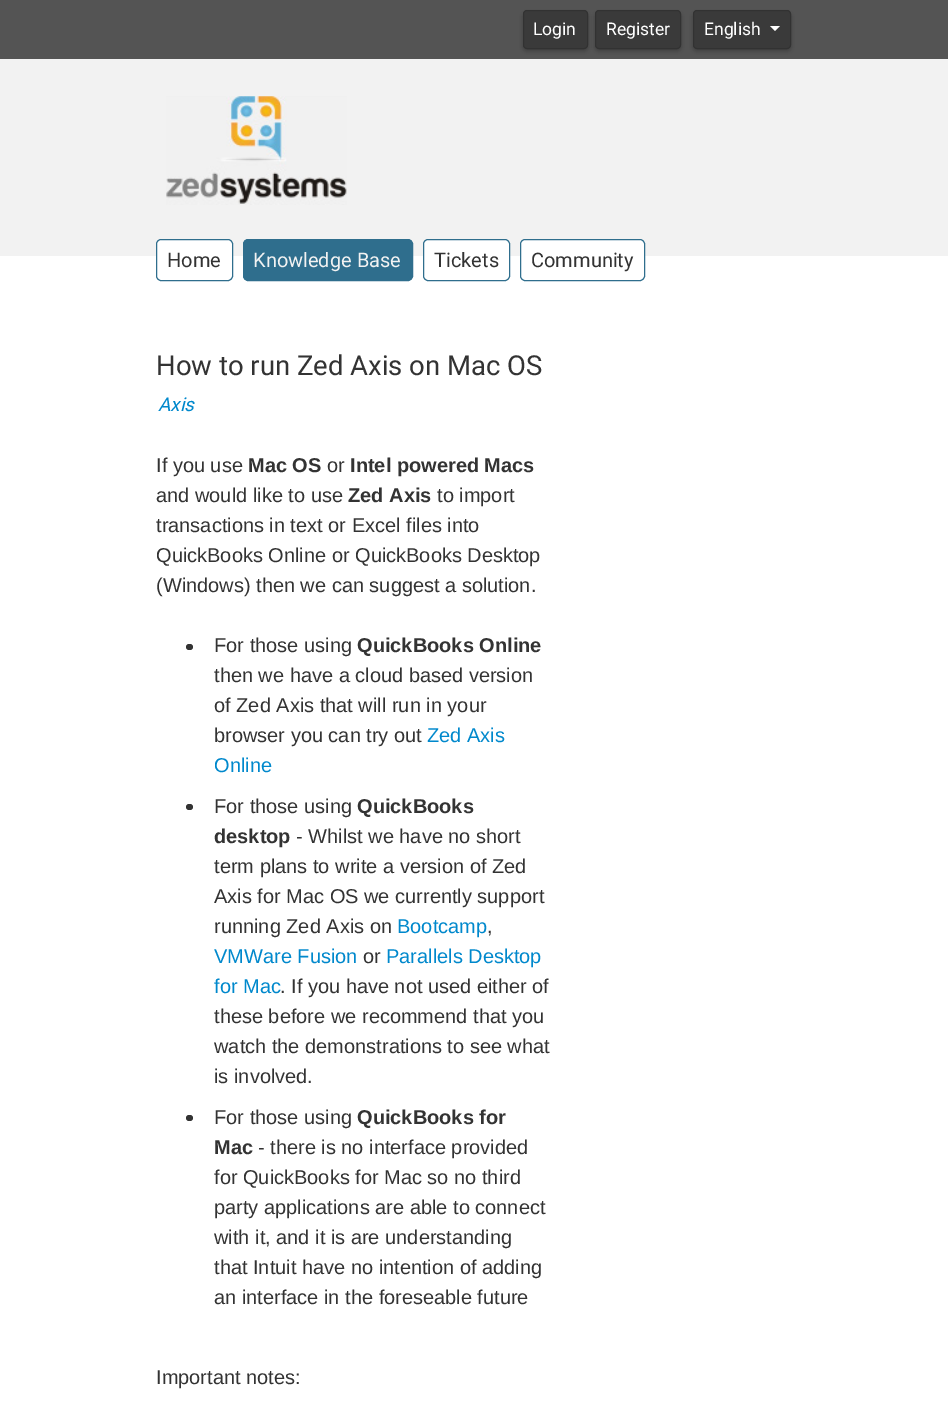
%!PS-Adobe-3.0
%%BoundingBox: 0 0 948 1405
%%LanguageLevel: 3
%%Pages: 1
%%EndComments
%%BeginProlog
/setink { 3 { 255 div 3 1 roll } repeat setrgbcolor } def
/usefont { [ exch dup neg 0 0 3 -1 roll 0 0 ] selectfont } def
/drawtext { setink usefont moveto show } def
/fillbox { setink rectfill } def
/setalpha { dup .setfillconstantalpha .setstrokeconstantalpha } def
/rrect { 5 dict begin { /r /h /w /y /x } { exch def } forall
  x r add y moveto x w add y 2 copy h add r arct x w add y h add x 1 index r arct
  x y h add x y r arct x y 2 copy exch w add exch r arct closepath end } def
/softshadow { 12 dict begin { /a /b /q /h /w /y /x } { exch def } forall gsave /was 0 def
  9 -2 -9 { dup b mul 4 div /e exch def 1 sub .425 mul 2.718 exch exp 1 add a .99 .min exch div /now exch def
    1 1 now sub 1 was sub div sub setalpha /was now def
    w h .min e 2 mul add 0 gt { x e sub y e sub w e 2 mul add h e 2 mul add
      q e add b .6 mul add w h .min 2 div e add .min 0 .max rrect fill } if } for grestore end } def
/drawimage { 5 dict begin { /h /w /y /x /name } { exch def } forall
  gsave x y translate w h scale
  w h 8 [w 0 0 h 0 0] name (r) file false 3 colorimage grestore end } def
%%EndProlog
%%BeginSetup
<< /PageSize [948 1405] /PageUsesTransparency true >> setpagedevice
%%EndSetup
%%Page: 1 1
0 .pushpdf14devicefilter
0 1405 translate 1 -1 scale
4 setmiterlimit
0 0 948 1405 255 255 255 fillbox
0 0 948 59 84 84 84 fillbox
0 0 0 setink
523 13 65 38 4 2 0.25 softshadow
58 58 58 setink
523.5 10.5 64 38 3.5 rrect gsave fill grestore
50 50 50 setink
stroke
(Login) 533 35 /Roboto-Regular 17.5 255 255 255 drawtext
0 0 0 setink
595 13 86 38 4 2 0.25 softshadow
58 58 58 setink
595.5 10.5 85 38 3.5 rrect gsave fill grestore
50 50 50 setink
stroke
(Register) 606 35 /Roboto-Regular 17.5 255 255 255 drawtext
0 0 0 setink
693 13 98 38 4 2 0.25 softshadow
58 58 58 setink
693.5 10.5 97 38 3.5 rrect gsave fill grestore
50 50 50 setink
stroke
(English) 704 35 /Roboto-Regular 17.5 255 255 255 drawtext
770 26 moveto 780 26 lineto 775 31 lineto closepath fill
0 59 948 197 242 242 242 fillbox
(assets/img1.rgb) 166 96 181 109 drawimage
255 255 255 setink
156.5 239.5 76 41 4.5 rrect gsave fill grestore
47 110 141 setink
stroke
(Home) 167 267 /Roboto-Regular 20 51 51 51 drawtext
47 110 141 setink
243.5 239.5 169 41 4.5 rrect gsave fill grestore
stroke
(Knowledge Base) 253 267 /Roboto-Regular 20 242 242 242 drawtext
255 255 255 setink
423.5 239.5 86 41 4.5 rrect gsave fill grestore
47 110 141 setink
stroke
(Tickets) 434 267 /Roboto-Regular 20 51 51 51 drawtext
255 255 255 setink
520.5 239.5 124 41 4.5 rrect gsave fill grestore
47 110 141 setink
stroke
(Community) 531 267 /Roboto-Regular 20 51 51 51 drawtext
(How to run Zed Axis on Mac OS) 156 375 /Roboto-Regular 27.5 51 51 51 drawtext
(Axis) 158 411 /Roboto-Italic 19 0 136 204 drawtext
(If you use) 156 472 /LiberationSans-Regular 20 51 51 51 drawtext
(Mac OS) 248 472 /LiberationSans-Bold 20 51 51 51 drawtext
(or) 327 472 /LiberationSans-Regular 20 51 51 51 drawtext
(Intel powered Macs) 350 472 /LiberationSans-Bold 20 51 51 51 drawtext
(and would like to use) 156 502 /LiberationSans-Regular 20 51 51 51 drawtext
(Zed Axis) 348 502 /LiberationSans-Bold 20 51 51 51 drawtext
(to import) 437 502 /LiberationSans-Regular 20 51 51 51 drawtext
(transactions in text or Excel files into) 156 532 /LiberationSans-Regular 20 51 51 51 drawtext
(QuickBooks Online or QuickBooks Desktop) 156 562 /LiberationSans-Regular 20 51 51 51 drawtext
(\(Windows\) then we can suggest a solution.) 156 592 /LiberationSans-Regular 20 51 51 51 drawtext
186 644 7 6 3 rrect fill
(For those using) 214 652 /LiberationSans-Regular 20 51 51 51 drawtext
(QuickBooks Online) 357 652 /LiberationSans-Bold 20 51 51 51 drawtext
(then we have a cloud based version) 214 682 /LiberationSans-Regular 20 51 51 51 drawtext
(of Zed Axis that will run in your) 214 712 /LiberationSans-Regular 20 51 51 51 drawtext
(browser you can try out) 214 742 /LiberationSans-Regular 20 51 51 51 drawtext
(Zed Axis) 427 742 /LiberationSans-Regular 20 0 136 204 drawtext
(Online) 214 772 /LiberationSans-Regular 20 0 136 204 drawtext
51 51 51 setink
186 804 7 6 3 rrect fill
(For those using) 214 813 /LiberationSans-Regular 20 51 51 51 drawtext
(QuickBooks) 357 813 /LiberationSans-Bold 20 51 51 51 drawtext
(desktop) 214 843 /LiberationSans-Bold 20 51 51 51 drawtext
(- Whilst we have no short) 296 843 /LiberationSans-Regular 20 51 51 51 drawtext
(term plans to write a version of Zed) 214 873 /LiberationSans-Regular 20 51 51 51 drawtext
(Axis for Mac OS we currently support) 214 903 /LiberationSans-Regular 20 51 51 51 drawtext
(running Zed Axis on) 214 933 /LiberationSans-Regular 20 51 51 51 drawtext
(Bootcamp) 397 933 /LiberationSans-Regular 20 0 136 204 drawtext
(,) 487 933 /LiberationSans-Regular 20 51 51 51 drawtext
(VMWare Fusion) 214 963 /LiberationSans-Regular 20 0 136 204 drawtext
(or) 363 963 /LiberationSans-Regular 20 51 51 51 drawtext
(Parallels Desktop) 386 963 /LiberationSans-Regular 20 0 136 204 drawtext
(for Mac) 214 993 /LiberationSans-Regular 20 0 136 204 drawtext
(. If you have not used either of) 280 993 /LiberationSans-Regular 20 51 51 51 drawtext
(these before we recommend that you) 214 1023 /LiberationSans-Regular 20 51 51 51 drawtext
(watch the demonstrations to see what) 214 1053 /LiberationSans-Regular 20 51 51 51 drawtext
(is involved.) 214 1083 /LiberationSans-Regular 20 51 51 51 drawtext
186 1115 7 6 3 rrect fill
(For those using) 214 1124 /LiberationSans-Regular 20 51 51 51 drawtext
(QuickBooks for) 357 1124 /LiberationSans-Bold 20 51 51 51 drawtext
(Mac) 214 1154 /LiberationSans-Bold 20 51 51 51 drawtext
(- there is no interface provided) 258 1154 /LiberationSans-Regular 20 51 51 51 drawtext
(for QuickBooks for Mac so no third) 214 1184 /LiberationSans-Regular 20 51 51 51 drawtext
(party applications are able to connect) 214 1214 /LiberationSans-Regular 20 51 51 51 drawtext
(with it, and it is are understanding) 214 1244 /LiberationSans-Regular 20 51 51 51 drawtext
(that Intuit have no intention of adding) 214 1274 /LiberationSans-Regular 20 51 51 51 drawtext
(an interface in the foreseable future) 214 1304 /LiberationSans-Regular 20 51 51 51 drawtext
(Important notes:) 156 1384 /LiberationSans-Regular 20 51 51 51 drawtext
.poppdf14devicefilter showpage
%%EOF
